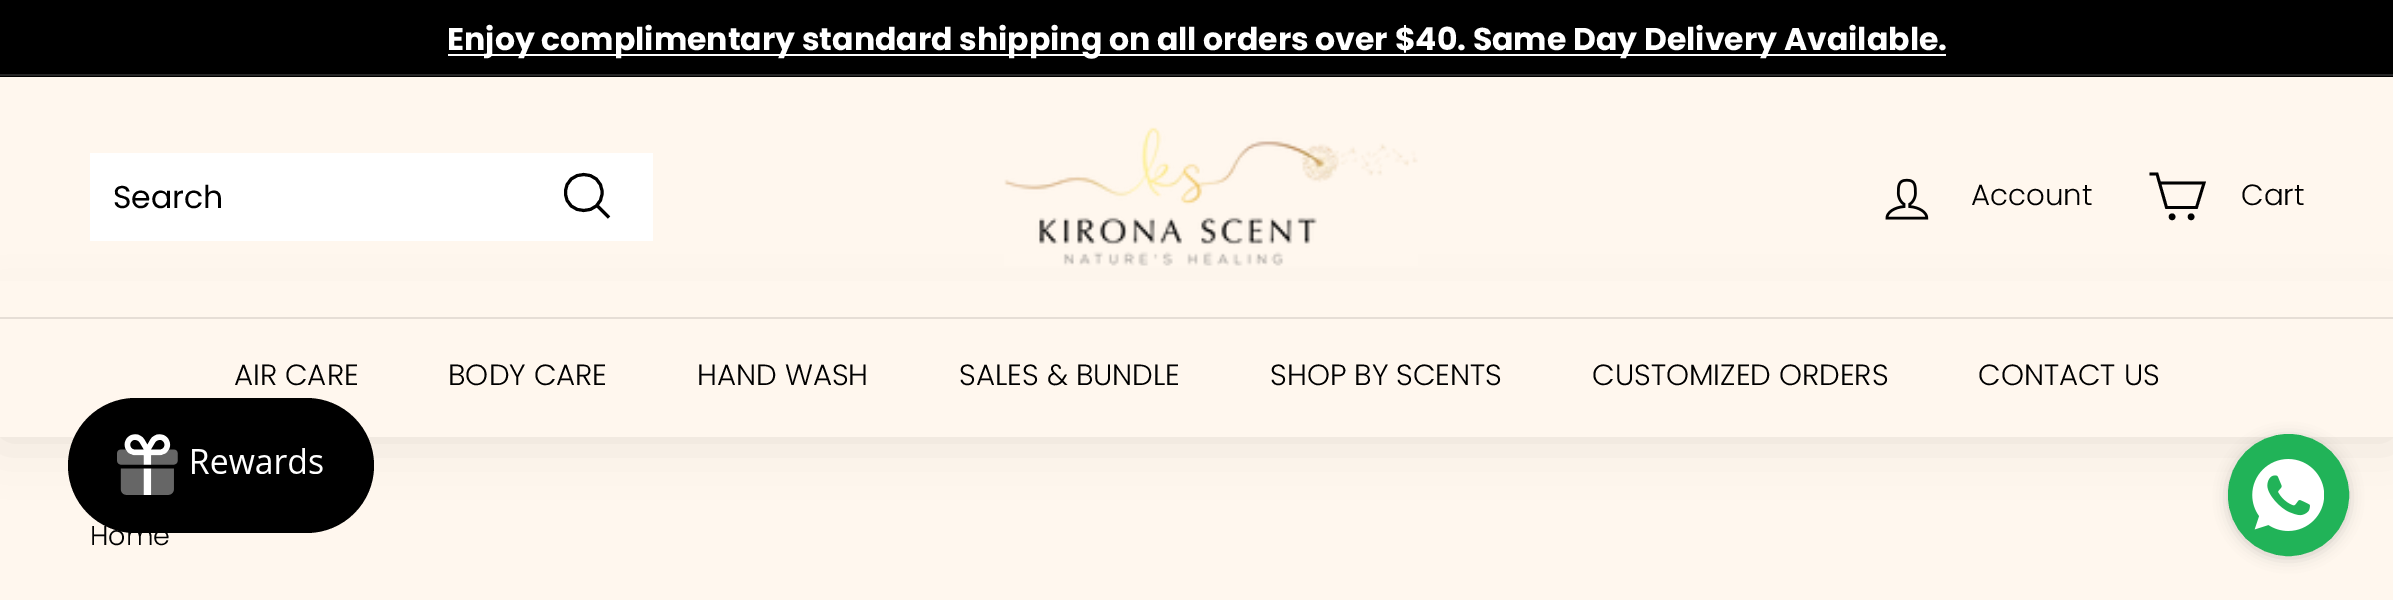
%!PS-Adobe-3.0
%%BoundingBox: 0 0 2393 600
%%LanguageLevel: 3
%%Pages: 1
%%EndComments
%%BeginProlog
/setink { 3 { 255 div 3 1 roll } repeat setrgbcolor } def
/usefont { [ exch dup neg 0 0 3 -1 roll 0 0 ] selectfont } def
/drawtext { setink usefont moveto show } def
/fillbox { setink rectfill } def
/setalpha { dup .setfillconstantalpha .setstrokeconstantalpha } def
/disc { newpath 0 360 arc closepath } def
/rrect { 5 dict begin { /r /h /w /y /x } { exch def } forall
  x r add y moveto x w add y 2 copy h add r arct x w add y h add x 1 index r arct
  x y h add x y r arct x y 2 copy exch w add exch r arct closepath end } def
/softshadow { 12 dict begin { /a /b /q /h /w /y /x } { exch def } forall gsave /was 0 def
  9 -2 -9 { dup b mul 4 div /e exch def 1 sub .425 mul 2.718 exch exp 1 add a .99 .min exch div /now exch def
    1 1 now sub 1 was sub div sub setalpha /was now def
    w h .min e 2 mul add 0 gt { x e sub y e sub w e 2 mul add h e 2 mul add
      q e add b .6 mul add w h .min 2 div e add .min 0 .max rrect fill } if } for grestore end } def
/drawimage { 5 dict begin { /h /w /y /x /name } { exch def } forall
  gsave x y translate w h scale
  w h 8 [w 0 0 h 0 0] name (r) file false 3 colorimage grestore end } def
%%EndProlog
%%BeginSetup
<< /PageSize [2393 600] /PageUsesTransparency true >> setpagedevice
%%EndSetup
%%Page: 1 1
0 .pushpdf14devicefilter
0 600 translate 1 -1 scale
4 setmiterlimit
0 0 2393 600 255 247 238 fillbox
0 0 2393 77 0 0 0 fillbox
448 54 1498 2 255 255 255 fillbox
(Enjoy complimentary standard shipping on all orders over $40. Same Day Delivery Available.) 447 50 /Poppins-Bold 31.5 255 255 255 drawtext
0 74 2393 2 38 38 38 fillbox
0 0 0 setink
0 317 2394 120 0 28 0.1 softshadow
0 281 2393 36 255 247 238 fillbox
90 153 563 88 255 255 255 fillbox
(Search) 113 208 /Poppins-Regular 31.5 0 0 0 drawtext
3 setlinewidth
602 192.5 moveto 602 216.5 565.5 216.5 565.5 192.5 curveto 565.5 168.5 602 168.5 602 192.5 curveto closepath 609 217.5 moveto 597 205.5 lineto stroke
(assets/img1.rgb) 1004 127 414 139 drawimage
(assets/img2.rgb) 1885 178 44 42 drawimage
(Account) 1971 205 /Poppins-Light 29.25 0 0 0 drawtext
2.8 setlinewidth
2160 183 moveto 2204 183 lineto 2196.5 207.5 lineto 2166.5 207.5 lineto 2157 174 lineto 2149.5 174 lineto stroke
2172.1 216.8 1.9 disc gsave fill grestore
stroke
2191.1 216.8 1.9 disc gsave fill grestore
stroke
(Cart) 2241 205 /Poppins-Light 29.25 0 0 0 drawtext
0 319 2393 118 255 247 238 fillbox
0 317 2393 2 230 222 214 fillbox
(AIR CARE) 234 385 /Poppins-Light 29.25 0 0 0 drawtext
(BODY CARE) 448 385 /Poppins-Light 29.25 0 0 0 drawtext
(HAND WASH) 697 385 /Poppins-Light 29.25 0 0 0 drawtext
(SALES & BUNDLE) 959 385 /Poppins-Light 29.25 0 0 0 drawtext
(SHOP BY SCENTS) 1270 385 /Poppins-Light 29.25 0 0 0 drawtext
(CUSTOMIZED ORDERS) 1592 385 /Poppins-Light 29.25 0 0 0 drawtext
(CONTACT US) 1978 385 /Poppins-Light 29.25 0 0 0 drawtext
(Home) 90 545 /Poppins-Light 27 0 0 0 drawtext
68 398 306 135 67.5 rrect fill
(assets/img3.rgb) 117 434 206 61 drawimage
27 27 27 setink
2228 437 121 121 60.5 7 0.2 softshadow
33 179 88 setink
2229 435 119 120 59.5 rrect gsave fill grestore
2 setlinewidth
stroke
(assets/img4.rgb) 2252 459 72 72 drawimage
.poppdf14devicefilter showpage
%%EOF
